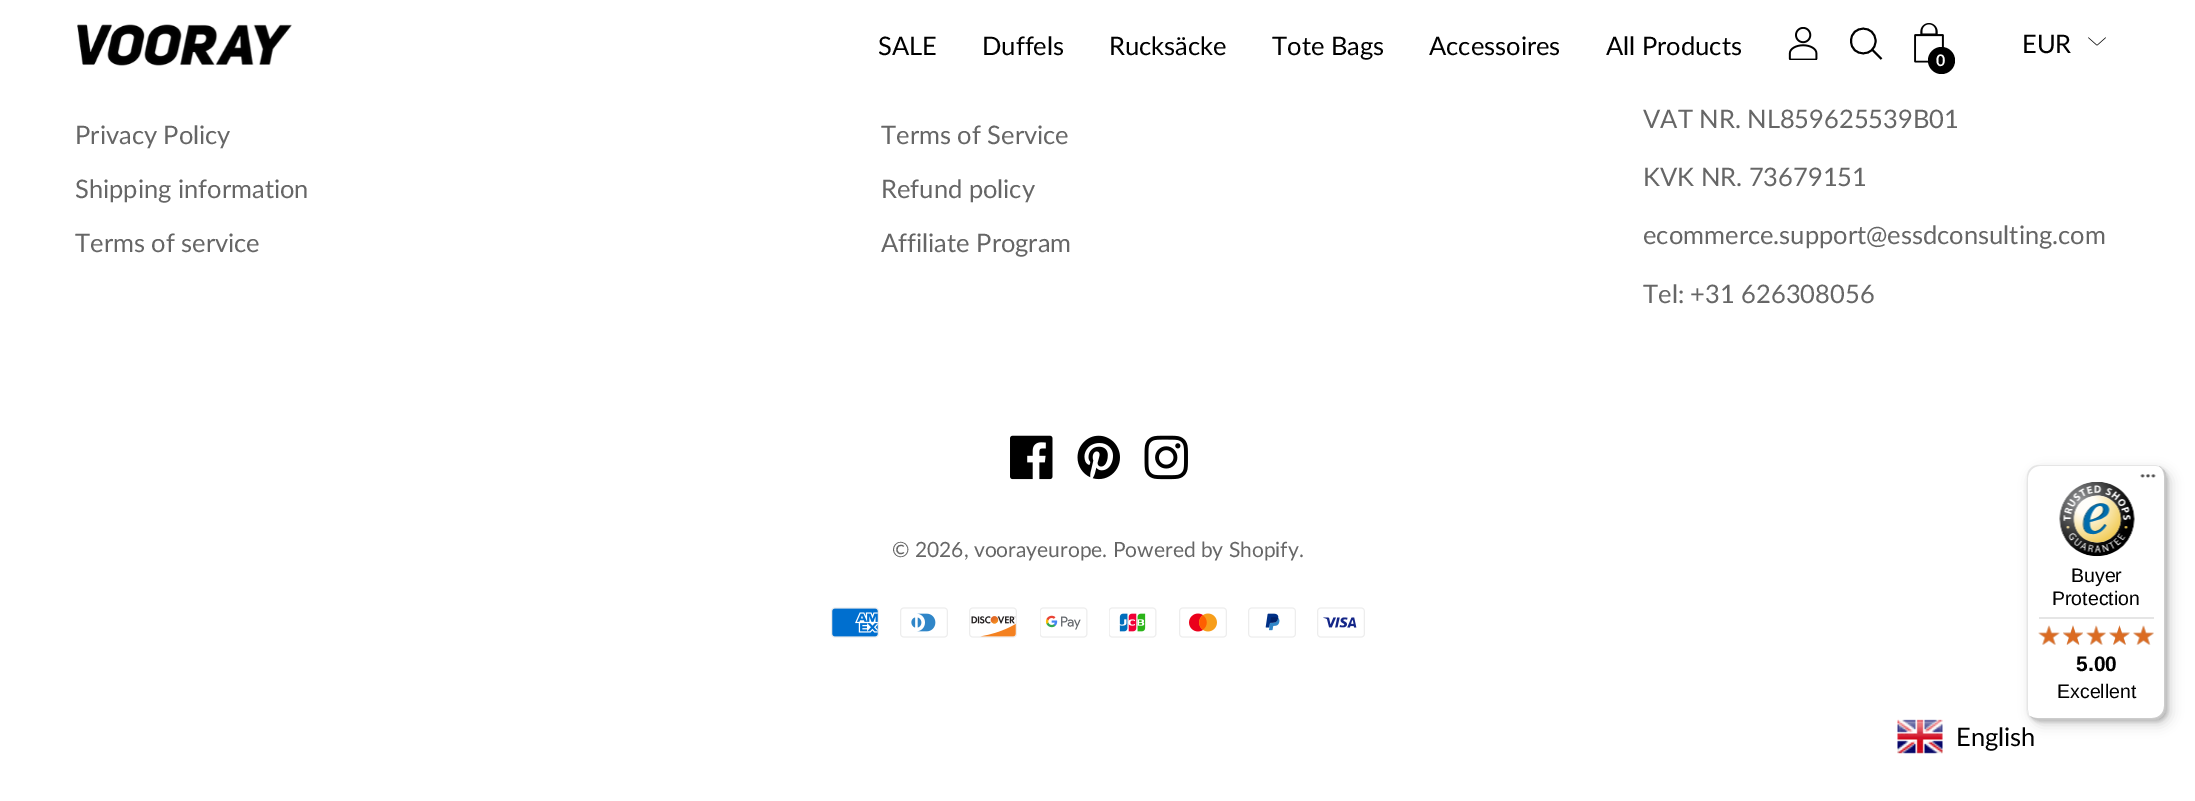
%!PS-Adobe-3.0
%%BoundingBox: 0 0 2195 801
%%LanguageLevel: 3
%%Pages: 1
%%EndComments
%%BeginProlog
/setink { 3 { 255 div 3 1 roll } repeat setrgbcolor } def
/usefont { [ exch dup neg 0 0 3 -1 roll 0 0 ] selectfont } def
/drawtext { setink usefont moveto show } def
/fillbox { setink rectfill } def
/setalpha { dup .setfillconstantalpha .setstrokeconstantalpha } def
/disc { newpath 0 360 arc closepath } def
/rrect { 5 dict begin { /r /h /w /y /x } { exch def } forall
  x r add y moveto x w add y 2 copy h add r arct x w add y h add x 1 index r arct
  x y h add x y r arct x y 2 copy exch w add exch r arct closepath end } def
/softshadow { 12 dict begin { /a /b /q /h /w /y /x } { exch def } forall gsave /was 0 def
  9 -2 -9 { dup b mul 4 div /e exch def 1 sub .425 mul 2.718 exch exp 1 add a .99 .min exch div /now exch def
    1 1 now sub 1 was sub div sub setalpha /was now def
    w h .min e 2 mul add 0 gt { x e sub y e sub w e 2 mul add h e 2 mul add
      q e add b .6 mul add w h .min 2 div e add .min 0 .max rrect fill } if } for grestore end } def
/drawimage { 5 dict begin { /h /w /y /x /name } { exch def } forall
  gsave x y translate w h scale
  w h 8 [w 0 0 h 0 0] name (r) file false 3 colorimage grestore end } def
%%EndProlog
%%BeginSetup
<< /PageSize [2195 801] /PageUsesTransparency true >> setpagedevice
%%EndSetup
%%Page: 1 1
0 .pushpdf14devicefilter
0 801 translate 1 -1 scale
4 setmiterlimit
0 0 2195 801 255 255 255 fillbox
(assets/img1.rgb) 77 24 215 42 drawimage
(SALE) 878 55 /Lato-Regular 25.5 0 0 0 drawtext
(Duffels) 982 55 /Lato-Regular 25.5 0 0 0 drawtext
(Rucksäcke) 1109 55 /Lato-Regular 25.5 0 0 0 drawtext
(Tote Bags) 1272 55 /Lato-Regular 25.5 0 0 0 drawtext
(Accessoires) 1429 55 /Lato-Regular 25.5 0 0 0 drawtext
(All Products) 1606 55 /Lato-Regular 25.5 0 0 0 drawtext
(assets/img2.rgb) 1788 27 30 33 drawimage
1.9 setlinewidth
1875.5 41 moveto 1875.5 57.5 1851 57.5 1851 41 curveto 1851 24.5 1875.5 24.5 1875.5 41 curveto closepath 1872 49.5 moveto 1881.5 59 lineto stroke
(EUR) 2022 53 /Lato-Regular 25.5 0 0 0 drawtext
(assets/img3.rgb) 2088 37 18 9 drawimage
(assets/img4.rgb) 1914 23 30 40 drawimage
1941.5 60.5 13.5 disc fill
(0) 1936 66 /Lato-Bold 16 255 255 255 drawtext
(Privacy Policy) 75 144 /Lato-Regular 25.5 102 102 102 drawtext
(Shipping information) 75 198 /Lato-Regular 25.5 102 102 102 drawtext
(Terms of service) 75 252 /Lato-Regular 25.5 102 102 102 drawtext
(Terms of Service) 881 144 /Lato-Regular 25.5 102 102 102 drawtext
(Refund policy) 881 198 /Lato-Regular 25.5 102 102 102 drawtext
(Affiliate Program) 881 252 /Lato-Regular 25.5 102 102 102 drawtext
(VAT NR. NL859625539B01) 1643 128 /Lato-Regular 25.5 102 102 102 drawtext
(KVK NR. 73679151) 1643 186 /Lato-Regular 25.5 102 102 102 drawtext
(ecommerce.support@essdconsulting.com) 1643 244 /Lato-Regular 25.5 102 102 102 drawtext
(Tel: +31 626308056) 1643 303 /Lato-Regular 25.5 102 102 102 drawtext
(assets/img5.rgb) 1010 435 43 45 drawimage
(assets/img6.rgb) 1077 435 43 45 drawimage
(assets/img7.rgb) 1144 435 44 45 drawimage
(© 2026, voorayeurope. Powered by Shopify.) 892 557 /Lato-Regular 21 102 102 102 drawtext
(assets/img8.rgb) 831 607 48 31 drawimage
(assets/img9.rgb) 900 607 48 31 drawimage
(assets/img10.rgb) 969 607 48 31 drawimage
(assets/img11.rgb) 1040 607 48 31 drawimage
(assets/img12.rgb) 1109 607 48 31 drawimage
(assets/img13.rgb) 1179 607 48 31 drawimage
(assets/img14.rgb) 1248 607 48 31 drawimage
(assets/img15.rgb) 1317 607 48 31 drawimage
0 0 0 setink
2031 470 140 255 12 6 0.15 softshadow
2028 467 140 255 12 1.5 0.15 softshadow
255 255 255 setink
2027 465 139 255 12 rrect fill
229 229 229 setink
2040 466 moveto 2156 466 lineto 2158 466 2160 467 2161 468 curveto 2159 466 2157 465 2154 465 curveto 2039 465 lineto 2032 465 2027 470 2027 477 curveto 2027 708 lineto 2027 710 2028 713 2029 715 curveto 2028 710 lineto 2028 478 lineto 2028 472 2033 466 2040 466 curveto closepath fill
0.2 setalpha
0 0 0 setink
2030 716 moveto 2032 718 2035 720 2039 720 curveto 2154 720 lineto 2161 720 2166 715 2166 708 curveto 2166 477 lineto 2166 472 2163 468 2159 466 curveto 2162 468 2164 472 2164 476 curveto 2164 706 lineto 2164 713 2159 718 2152 718 curveto 2037 718 lineto 2034 718 2032 717 2030 716 curveto closepath fill
50 50 50 setink
2031 717 moveto 2033 719 2036 720 2039 720 curveto 2154 720 lineto 2161 720 2166 715 2166 708 curveto 2166 477 lineto 2166 474 2165 471 2163 469 curveto 2164 471 2165 473 2165 476 curveto 2165 707 lineto 2165 714 2160 719 2153 719 curveto 2038 719 lineto 2035 719 2033 718 2031 717 curveto closepath fill
0.3 setalpha
255 255 255 setink
2031 717 moveto 2033 719 2036 720 2039 720 curveto 2154 720 lineto 2161 720 2166 715 2166 708 curveto 2166 477 lineto 2166 473 2164 470 2162 468 curveto 2164 470 2165 473 2165 476 curveto 2165 707 lineto 2165 714 2160 719 2153 719 curveto 2038 719 lineto 2035 719 2033 718 2031 717 curveto closepath fill
1 setalpha
(assets/img16.rgb) 2140 474 16 4 drawimage
(assets/img17.rgb) 2059 482 76 75 drawimage
(Buyer) 2071 582 /LiberationSans-Regular 19.5 0 0 0 drawtext
(Protection) 2052 605 /LiberationSans-Regular 19.5 0 0 0 drawtext
2039 617 115 2 229 229 229 fillbox
(assets/img18.rgb) 2038 626 22 19 drawimage
(assets/img19.rgb) 2063 625 20 20 drawimage
(assets/img20.rgb) 2086 626 20 19 drawimage
(assets/img21.rgb) 2109 625 21 20 drawimage
(assets/img22.rgb) 2133 626 21 19 drawimage
(assets/img23.rgb) 2038 625 22 20 drawimage
(assets/img24.rgb) 2063 625 20 20 drawimage
(assets/img25.rgb) 2086 625 20 20 drawimage
(assets/img26.rgb) 2109 625 21 20 drawimage
(assets/img27.rgb) 2133 625 21 20 drawimage
(5.00) 2076 671 /LiberationSans-Bold 21 0 0 0 drawtext
(Excellent) 2057 698 /LiberationSans-Regular 19.5 0 0 0 drawtext
(assets/img28.rgb) 1897 719 46 35 drawimage
(English) 1956 746 /Lato-Regular 25.5 0 0 0 drawtext
.poppdf14devicefilter showpage
%%EOF
